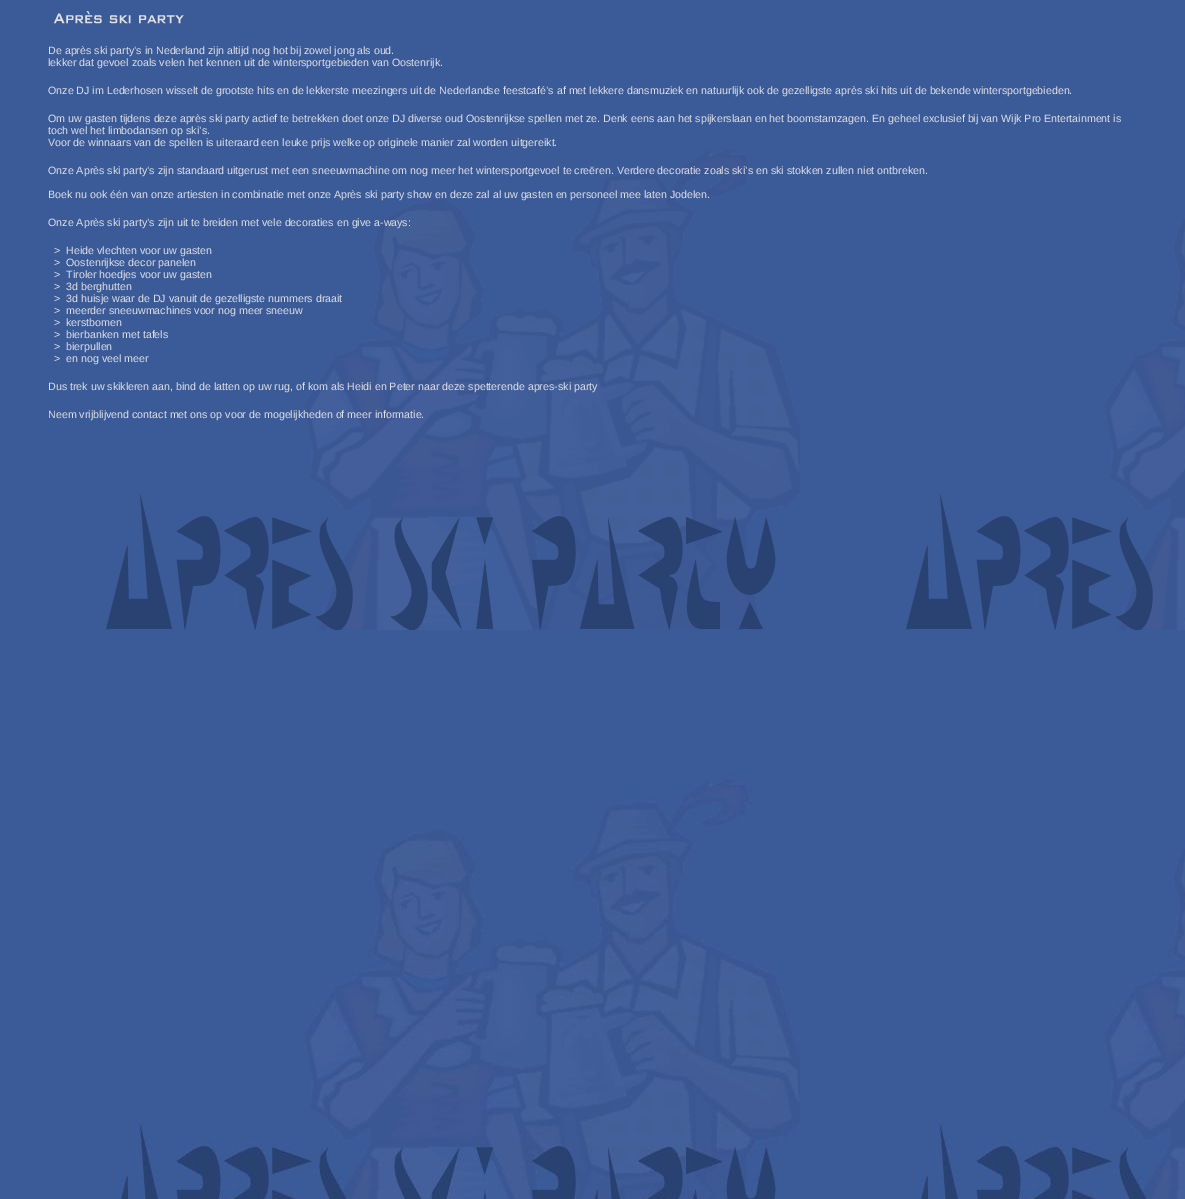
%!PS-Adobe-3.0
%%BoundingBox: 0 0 1185 1199
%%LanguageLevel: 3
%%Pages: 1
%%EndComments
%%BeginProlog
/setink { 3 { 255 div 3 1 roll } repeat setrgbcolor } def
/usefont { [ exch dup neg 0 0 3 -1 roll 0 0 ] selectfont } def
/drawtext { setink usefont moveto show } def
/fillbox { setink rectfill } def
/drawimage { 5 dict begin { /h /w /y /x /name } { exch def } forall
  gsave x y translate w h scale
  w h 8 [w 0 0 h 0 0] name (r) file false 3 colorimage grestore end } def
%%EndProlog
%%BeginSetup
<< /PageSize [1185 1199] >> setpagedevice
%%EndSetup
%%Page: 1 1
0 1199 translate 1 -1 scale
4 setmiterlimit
0 0 1185 1199 59 91 152 fillbox
(assets/img1.rgb) 104 150 1081 1049 drawimage
(assets/img2.rgb) 53 11 131 13 drawimage
(De après ski party’s in Nederland zijn altijd nog hot bij zowel jong) 48 54 /LiberationSans-Regular 10.67 224 223 227 drawtext
(als oud.) 357 54 /LiberationSans-Regular 10.67 224 223 227 drawtext
(lekker dat gevoel zoals velen het kennen uit de wintersportgebieden van Oostenrijk.) 48 66 /LiberationSans-Regular 10.67 224 223 227 drawtext
(Onze DJ im Lederhosen wisselt de grootste hits en de lekkerste meezingers uit de Nederlandse feestcafé’s af met lekkere dansmuziek en natuurlijk ook de gezelligste après ski hits uit de bekende wintersportgebieden.) 48 94 /LiberationSans-Regular 10.67 224 223 227 drawtext
(Om uw gasten tijdens deze après ski party actief te betrekken doet onze DJ diverse oud Oostenrijkse spellen met ze. Denk eens aan het spijkerslaan en het boomstamzagen. En geheel exclusief bij van Wijk Pro Entertainment is) 48 122 /LiberationSans-Regular 10.67 224 223 227 drawtext
(toch wel het limbodansen op ski’s.) 48 134 /LiberationSans-Regular 10.67 224 223 227 drawtext
(Voor de winnaars van de spellen is uiteraard een leuke prijs welke) 48 146 /LiberationSans-Regular 10.67 224 223 227 drawtext
(op originele manier zal worden uitgereikt.) 363 146 /LiberationSans-Regular 10.67 224 223 227 drawtext
(Onze Après ski party’s zijn standaard uitgerust met een sneeuwmachine om nog meer het wintersportgevoel te creëren. Verdere decoratie zoals ski’s en ski stokken zullen niet ontbreken.) 48 174 /LiberationSans-Regular 10.67 224 223 227 drawtext
(Boek nu ook één van onze artiesten in combinatie met onze Après ski party show en deze zal al uw gasten en personeel mee laten Jodelen.) 48 198 /LiberationSans-Regular 10.67 224 223 227 drawtext
(Onze Après ski party’s zijn uit te breiden met vele decoraties en give a-ways:) 48 226 /LiberationSans-Regular 10.67 224 223 227 drawtext
(>  Heide vlechten voor uw gasten) 54 254 /LiberationSans-Regular 10.67 224 223 227 drawtext
(>  Oostenrijkse decor panelen) 54 266 /LiberationSans-Regular 10.67 224 223 227 drawtext
(>  Tiroler hoedjes voor uw gasten) 54 278 /LiberationSans-Regular 10.67 224 223 227 drawtext
(>  3d berghutten) 54 290 /LiberationSans-Regular 10.67 224 223 227 drawtext
(>  3d huisje waar de DJ vanuit de gezelligste nummers draait) 54 302 /LiberationSans-Regular 10.67 224 223 227 drawtext
(>  meerder sneeuwmachines voor nog meer sneeuw) 54 314 /LiberationSans-Regular 10.67 224 223 227 drawtext
(>  kerstbomen) 54 326 /LiberationSans-Regular 10.67 224 223 227 drawtext
(>  bierbanken met tafels) 54 338 /LiberationSans-Regular 10.67 224 223 227 drawtext
(>  bierpullen) 54 350 /LiberationSans-Regular 10.67 224 223 227 drawtext
(>  en nog veel meer) 54 362 /LiberationSans-Regular 10.67 224 223 227 drawtext
(Dus trek uw skikleren aan, bind de latten op uw rug, of kom als Heidi en Peter naar deze spetterende apres-ski party) 48 390 /LiberationSans-Regular 10.67 224 223 227 drawtext
(Neem vrijblijvend contact met ons op voor de mogelijkheden of meer informatie.) 48 418 /LiberationSans-Regular 10.67 224 223 227 drawtext
showpage
%%EOF
